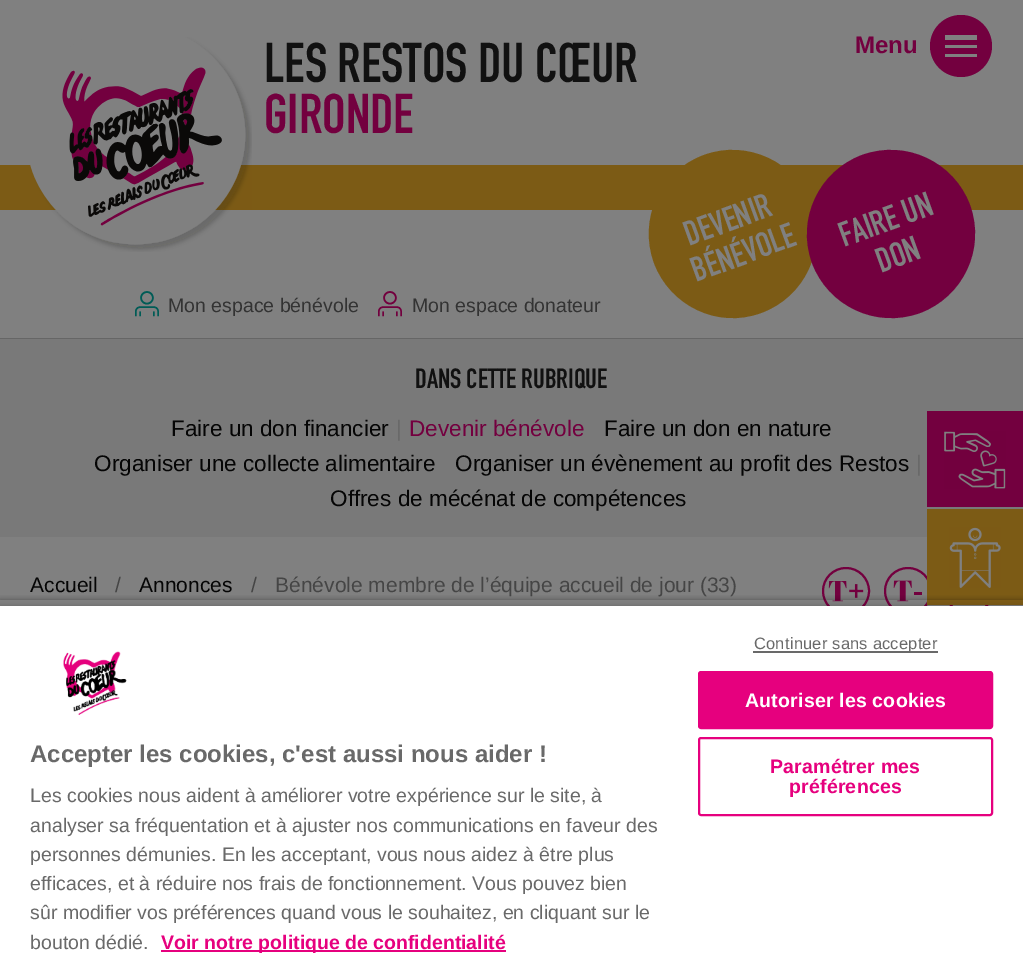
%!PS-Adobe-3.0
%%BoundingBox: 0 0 1023 957
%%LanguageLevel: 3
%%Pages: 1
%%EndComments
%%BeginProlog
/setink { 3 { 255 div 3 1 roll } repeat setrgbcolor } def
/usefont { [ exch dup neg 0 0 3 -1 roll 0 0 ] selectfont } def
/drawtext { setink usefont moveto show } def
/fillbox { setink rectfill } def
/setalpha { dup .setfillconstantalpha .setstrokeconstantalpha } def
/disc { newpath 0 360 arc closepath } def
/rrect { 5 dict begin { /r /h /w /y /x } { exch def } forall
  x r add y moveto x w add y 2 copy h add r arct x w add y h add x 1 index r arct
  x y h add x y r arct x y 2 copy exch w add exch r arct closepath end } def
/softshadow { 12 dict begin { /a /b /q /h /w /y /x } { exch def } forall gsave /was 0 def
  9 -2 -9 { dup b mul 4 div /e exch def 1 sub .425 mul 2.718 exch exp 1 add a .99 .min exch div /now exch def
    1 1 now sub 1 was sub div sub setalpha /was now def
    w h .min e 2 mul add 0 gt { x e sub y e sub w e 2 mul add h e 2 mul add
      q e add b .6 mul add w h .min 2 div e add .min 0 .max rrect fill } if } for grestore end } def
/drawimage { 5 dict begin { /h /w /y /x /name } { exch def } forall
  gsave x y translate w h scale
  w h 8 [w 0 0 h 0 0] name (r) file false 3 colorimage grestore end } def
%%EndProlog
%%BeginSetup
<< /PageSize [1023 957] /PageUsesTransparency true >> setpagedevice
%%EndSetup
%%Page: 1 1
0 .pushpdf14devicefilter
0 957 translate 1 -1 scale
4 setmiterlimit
0 0 1023 957 128 128 128 fillbox
0 338 1023 1 102 102 102 fillbox
0 165 1023 45 124 91 21 fillbox
(assets/img1.rgb) 30 37 222 215 drawimage
(LES RESTOS DU CŒUR) 264 82 /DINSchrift-Medium 54 17 17 17 drawtext
(GIRONDE) 264 133 /DINSchrift-Medium 54 115 0 63 drawtext
(Menu) 855 53 /LiberationSans-Bold 24 115 0 63 drawtext
961 46 31 disc fill
945 45 32 3 128 128 128 fillbox
945 35 32 5 128 128 128 fillbox
945 54 32 3 128 128 128 fillbox
124 91 21 setink
704 155 moveto 747 139 796 162 812 205 curveto 827 249 805 297 761 313 curveto 718 329 670 306 654 263 curveto 638 219 660 171 704 155 curveto closepath fill
/DINSchrift-Medium 33.5 usefont
128 128 128 setink
gsave 689 246 translate -20 rotate 0 0 moveto (DEVENIR) show grestore
gsave 696 282 translate -20 rotate 0 0 moveto (BÉNÉVOLE) show grestore
115 0 63 setink
862 155 moveto 906 139 954 162 970 205 curveto 986 249 963 297 920 313 curveto 876 329 828 306 812 263 curveto 796 219 819 171 862 155 curveto closepath fill
128 128 128 setink
gsave 844 247 translate -20 rotate 0 0 moveto (FAIRE UN) show grestore
gsave 881 273 translate -20 rotate 0 0 moveto (DON) show grestore
(assets/img2.rgb) 135 291 24 26 drawimage
(Mon espace bénévole) 168 312 /LiberationSans-Regular 19.5 51 51 51 drawtext
(assets/img3.rgb) 378 291 24 26 drawimage
(Mon espace donateur) 412 312 /LiberationSans-Regular 19.5 51 51 51 drawtext
0 339 1023 198 121 121 121 fillbox
(DANS CETTE RUBRIQUE) 415 388 /DINSchrift-Medium 27 17 17 17 drawtext
(Faire un don financier) 171 436 /LiberationSans-Regular 22.5 5 5 5 drawtext
(|) 396 436 /LiberationSans-Regular 22.5 105 105 105 drawtext
(Devenir bénévole) 409 436 /LiberationSans-Regular 22.5 115 0 63 drawtext
(Faire un don en nature) 604 436 /LiberationSans-Regular 22.5 5 5 5 drawtext
(Organiser une collecte alimentaire) 94 471 /LiberationSans-Regular 22.5 5 5 5 drawtext
(Organiser un évènement au profit des Restos) 455 471 /LiberationSans-Regular 22.5 5 5 5 drawtext
(|) 916 471 /LiberationSans-Regular 22.5 105 105 105 drawtext
(Offres de mécénat de compétences) 330 506 /LiberationSans-Regular 22.5 5 5 5 drawtext
(Accueil) 30 592 /LiberationSans-Regular 21 5 5 5 drawtext
(/) 115 592 /LiberationSans-Regular 21 69 69 69 drawtext
(Annonces) 139 592 /LiberationSans-Regular 21 5 5 5 drawtext
(/) 251 592 /LiberationSans-Regular 21 69 69 69 drawtext
(Bénévole membre de l’équipe accueil de jour \(33\)) 275 592 /LiberationSans-Regular 21 69 69 69 drawtext
(assets/img4.rgb) 828 581 36 21 drawimage
115 0 63 setink
2 setlinewidth
846 591 23 disc stroke
(assets/img5.rgb) 893 580 29 22 drawimage
908 591 23 disc stroke
969 591 23 disc stroke
927 411 96 96 115 0 63 fillbox
(assets/img6.rgb) 944 431 62 58 drawimage
927 509 96 96 124 91 21 fillbox
(assets/img7.rgb) 949 527 52 61 drawimage
gsave
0 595 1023 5 rectclip
0 0 0 setink
0 600 1023 357 0 3 0.35 softshadow
grestore
0 0 0 setink
0 606 1023 351 0 3 0.2 softshadow
0 606 1023 351 255 255 255 fillbox
753 651 185 2 105 105 105 fillbox
/LiberationSans-Regular 16.5 usefont
754 649 moveto 0.2 0 (Continuer sans accepter) ashow
230 0 126 setink
699 672 293 56 2 rrect gsave fill grestore
stroke
/LiberationSans-Bold 19.5 usefont
255 255 255 setink
745 707 moveto 0.2 0 (Autoriser les cookies) ashow
230 0 126 setink
699 738 293 77 2 rrect stroke
770 773 moveto 0.2 0 (Paramétrer mes) ashow
789 793 moveto 0.2 0 (préférences) ashow
(assets/img8.rgb) 63 651 64 64 drawimage
(Accepter les cookies, c'est aussi nous aider !) 30 762 /LiberationSans-Bold 24 105 105 105 drawtext
(Les cookies nous aident à améliorer votre expérience sur le site, à) 30 802 /LiberationSans-Regular 19.5 105 105 105 drawtext
(analyser sa fréquentation et à ajuster nos communications en faveur des) 30 832 /LiberationSans-Regular 19.5 105 105 105 drawtext
(personnes démunies. En les acceptant, vous nous aidez à être plus) 30 861 /LiberationSans-Regular 19.5 105 105 105 drawtext
(efficaces, et à réduire nos frais de fonctionnement. Vous pouvez bien) 30 890 /LiberationSans-Regular 19.5 105 105 105 drawtext
(sûr modifier vos préférences quand vous le souhaitez, en cliquant sur le) 30 919 /LiberationSans-Regular 19.5 105 105 105 drawtext
(bouton dédié.) 30 949 /LiberationSans-Regular 19.5 105 105 105 drawtext
161 950 345 2 230 0 126 fillbox
(Voir notre politique de confidentialité) 161 949 /LiberationSans-Bold 19.5 230 0 126 drawtext
.poppdf14devicefilter showpage
%%EOF
